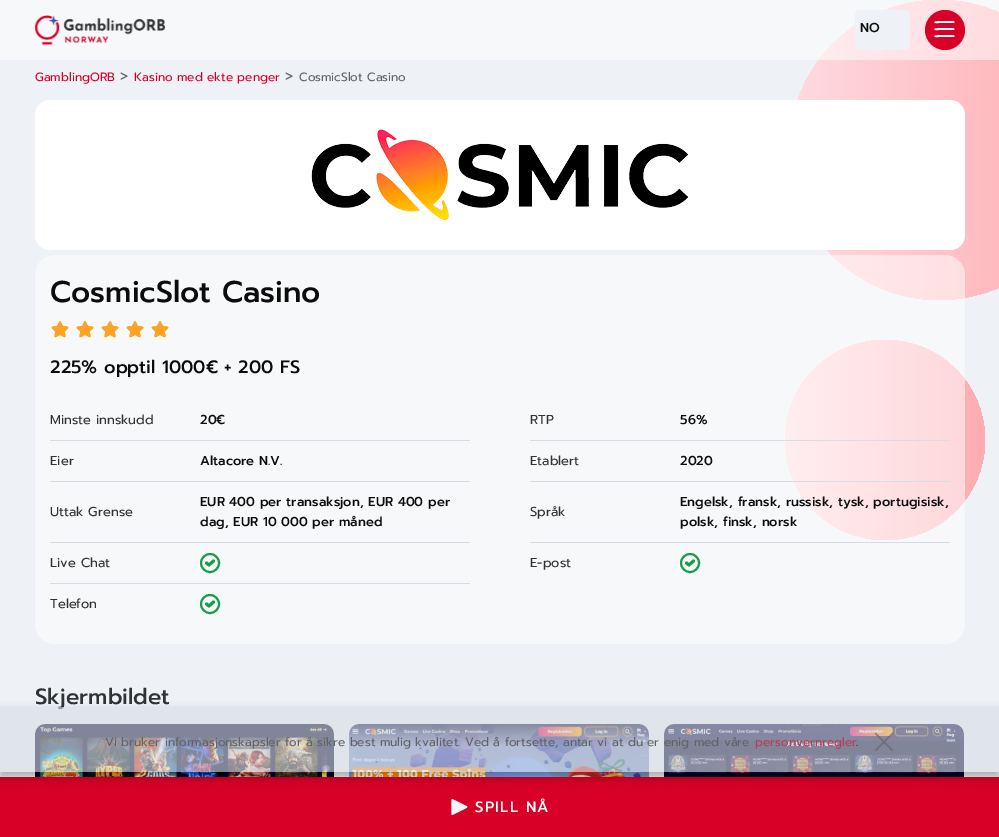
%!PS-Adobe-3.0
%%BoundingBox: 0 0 999 837
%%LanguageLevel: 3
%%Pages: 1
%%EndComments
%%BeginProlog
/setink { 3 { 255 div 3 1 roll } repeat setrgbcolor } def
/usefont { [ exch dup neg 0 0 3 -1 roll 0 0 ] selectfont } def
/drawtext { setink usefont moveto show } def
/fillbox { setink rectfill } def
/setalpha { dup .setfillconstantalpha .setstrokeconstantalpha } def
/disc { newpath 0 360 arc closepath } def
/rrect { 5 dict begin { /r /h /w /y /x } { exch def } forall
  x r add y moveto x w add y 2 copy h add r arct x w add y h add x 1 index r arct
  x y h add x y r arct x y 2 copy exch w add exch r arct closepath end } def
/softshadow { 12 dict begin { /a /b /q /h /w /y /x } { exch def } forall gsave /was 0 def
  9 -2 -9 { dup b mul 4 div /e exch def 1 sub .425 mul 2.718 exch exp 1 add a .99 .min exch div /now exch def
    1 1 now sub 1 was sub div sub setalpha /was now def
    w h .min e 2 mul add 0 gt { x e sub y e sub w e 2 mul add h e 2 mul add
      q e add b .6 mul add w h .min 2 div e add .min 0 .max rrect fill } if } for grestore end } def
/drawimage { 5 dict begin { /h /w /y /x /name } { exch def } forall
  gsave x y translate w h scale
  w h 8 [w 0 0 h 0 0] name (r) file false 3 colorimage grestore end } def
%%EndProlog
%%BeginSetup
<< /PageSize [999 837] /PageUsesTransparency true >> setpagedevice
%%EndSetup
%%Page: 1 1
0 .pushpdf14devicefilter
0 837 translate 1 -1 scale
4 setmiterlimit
0 0 999 837 238 241 245 fillbox
gsave 939 150 150 disc clip newpath
<< /ShadingType 2 /ColorSpace /DeviceRGB /Coords [789 150 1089 150] /Extend [true true] /Function << /FunctionType 2 /Domain [0 1] /C0 [1 0.859 0.886] /C1 [0.992 0.675 0.69] /N 1 >> >> shfill grestore
0.5 setalpha
0 0 999 60 255 255 255 fillbox
1 setalpha
(assets/img1.rgb) 34 15 131 30 drawimage
238 241 245 setink
855 10 55 40 5 rrect fill
(NO) 860 32 /Prompt-Medium 13 12 12 13 drawtext
216 0 39 setink
945 30 20 disc fill
255 255 255 setink
953.5 35 moveto 951.5 35 935.5 35 935 35.5 curveto 933 37.5 936.5 37 938.5 37 curveto 954 37 lineto 954.5 37 954.5 36 954 35.5 curveto closepath 953.5 28 moveto 951.5 28 935.5 28 935 28.5 curveto 933 30.5 936.5 30 938.5 30 curveto 954 30 lineto 954.5 30 954.5 29 954 28.5 curveto closepath 953.5 21 moveto 951.5 21 935.5 21 935 21.5 curveto 933 23.5 936.5 23 938.5 23 curveto 954 23 lineto 954.5 23 954.5 22 954 21.5 curveto closepath fill
(GamblingORB) 35 81 /Prompt-Regular 12 216 0 39 drawtext
(>) 120 81 /Prompt-Regular 15 97 99 102 drawtext
(Kasino med ekte penger) 134 81 /Prompt-Regular 12 216 0 39 drawtext
(>) 285 81 /Prompt-Regular 15 97 99 102 drawtext
(CosmicSlot Casino) 299 81 /Prompt-Regular 12 97 99 102 drawtext
255 255 255 setink
35 100 930 150 15 rrect fill
(assets/img2.rgb) 311 129 378 91 drawimage
gsave 885 440 100 disc clip newpath
<< /ShadingType 2 /ColorSpace /DeviceRGB /Coords [785 440 985 440] /Extend [true true] /Function << /FunctionType 2 /Domain [0 1] /C0 [1 0.859 0.886] /C1 [0.992 0.675 0.69] /N 1 >> >> shfill grestore
0.5 setalpha
35 255 930 389 20 rrect fill
1 setalpha
(CosmicSlot Casino) 50 302 /Prompt-Medium 30 12 12 13 drawtext
(assets/img3.rgb) 51 321 118 17 drawimage
(assets/img4.rgb) 51 321 118 17 drawimage
(225% opptil 1000€ + 200 FS) 50 373 /Prompt-Medium 18 12 12 13 drawtext
0 777 999 60 216 0 39 fillbox
(assets/img5.rgb) 451 799 17 16 drawimage
/Prompt-Medium 15 usefont
255 255 255 setink
475 812 moveto 1.25 0 (SPILL NÅ) ashow
(Minste innskudd) 50 424 /Prompt-Regular 13 49 50 51 drawtext
(20€) 200 424 /Prompt-Medium 13 12 12 13 drawtext
(RTP) 530 424 /Prompt-Regular 13 49 50 51 drawtext
(56%) 680 424 /Prompt-Medium 13 12 12 13 drawtext
50 440 420 1 215 221 230 fillbox
(Eier) 50 465 /Prompt-Regular 13 49 50 51 drawtext
(Altacore N.V.) 200 465 /Prompt-Medium 13 12 12 13 drawtext
530 440 420 1 215 221 230 fillbox
(Etablert) 530 465 /Prompt-Regular 13 49 50 51 drawtext
(2020) 680 465 /Prompt-Medium 13 12 12 13 drawtext
50 481 420 1 215 221 230 fillbox
(Uttak Grense) 50 516 /Prompt-Regular 13 49 50 51 drawtext
(EUR 400 per transaksjon, EUR 400 per) 200 506 /Prompt-Medium 13 12 12 13 drawtext
(dag, EUR 10 000 per måned) 200 526 /Prompt-Medium 13 12 12 13 drawtext
530 481 420 1 215 221 230 fillbox
(Språk) 530 516 /Prompt-Regular 13 49 50 51 drawtext
(Engelsk, fransk, russisk, tysk, portugisisk,) 680 506 /Prompt-Medium 13 12 12 13 drawtext
(polsk, finsk, norsk) 680 526 /Prompt-Medium 13 12 12 13 drawtext
50 542 420 1 215 221 230 fillbox
(Live Chat) 50 567 /Prompt-Regular 13 49 50 51 drawtext
25 156 77 setink
2 setlinewidth
210 563 9 disc stroke
3 setlinewidth
1 setlinecap
1 setlinejoin
206.5 563 moveto 209 565 lineto 213.5 561 lineto stroke
530 542 420 1 215 221 230 fillbox
(E-post) 530 567 /Prompt-Regular 13 49 50 51 drawtext
25 156 77 setink
2 setlinewidth
0 setlinecap
0 setlinejoin
690 563 9 disc stroke
3 setlinewidth
1 setlinecap
1 setlinejoin
686.5 563 moveto 689 565 lineto 693.5 561 lineto stroke
50 583 420 1 215 221 230 fillbox
(Telefon) 50 608 /Prompt-Regular 13 49 50 51 drawtext
25 156 77 setink
2 setlinewidth
0 setlinecap
0 setlinejoin
210 604 9 disc stroke
3 setlinewidth
1 setlinecap
1 setlinejoin
206.5 604 moveto 209 606 lineto 213.5 602 lineto stroke
(Skjermbildet) 35 704 /Prompt-Medium 22 49 50 51 drawtext
(assets/img6.rgb) 35 724 299 53 drawimage
(assets/img7.rgb) 349 724 300 53 drawimage
(assets/img8.rgb) 664 724 300 53 drawimage
gsave
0 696 moveto 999 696 lineto 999 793 lineto 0 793 lineto closepath 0 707 moveto 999 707 lineto 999 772 lineto 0 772 lineto closepath eoclip newpath
0 0 0 setink
0 712 999 65 0 5 0.3 softshadow
grestore
0.6 setalpha
0 707 999 65 215 221 230 fillbox
1 setalpha
(Vi bruker informasjonskapsler for å sikre best mulig kvalitet. Ved å fortsette, antar vi at du er enig med våre) 105 746 /Prompt-Regular 12 97 99 102 drawtext
(personvernregler) 755 746 /Prompt-Regular 12 187 59 89 drawtext
(.) 856 746 /Prompt-Regular 12 30 30 45 drawtext
0.6 setalpha
97 99 102 setink
1.6 setlinewidth
875.5 733.5 moveto 892.5 750.5 lineto 892.5 733.5 moveto 875.5 750.5 lineto stroke
.poppdf14devicefilter showpage
%%EOF
